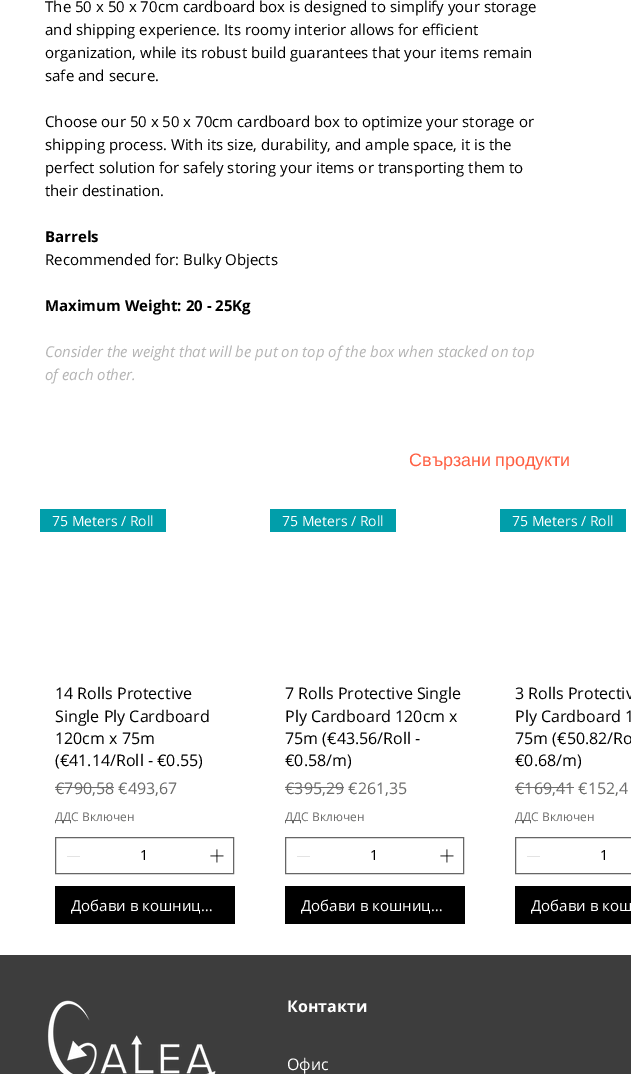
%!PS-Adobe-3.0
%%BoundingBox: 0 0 631 1074
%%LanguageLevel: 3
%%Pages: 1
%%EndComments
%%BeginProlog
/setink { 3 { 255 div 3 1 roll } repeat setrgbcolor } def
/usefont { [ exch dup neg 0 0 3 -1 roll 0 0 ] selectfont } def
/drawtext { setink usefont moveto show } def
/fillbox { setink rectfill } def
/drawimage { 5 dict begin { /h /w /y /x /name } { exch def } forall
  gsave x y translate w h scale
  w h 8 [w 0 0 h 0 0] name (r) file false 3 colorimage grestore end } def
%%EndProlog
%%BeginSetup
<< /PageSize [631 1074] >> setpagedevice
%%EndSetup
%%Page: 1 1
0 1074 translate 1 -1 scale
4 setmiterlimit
0 0 631 1074 255 255 255 fillbox
(The 50 x 50 x 70cm cardboard box is designed to simplify your storage) 45 12 /OpenSans-Regular 15 0 0 0 drawtext
(and shipping experience. Its roomy interior allows for efficient) 45 35 /OpenSans-Regular 15 0 0 0 drawtext
(organization, while its robust build guarantees that your items remain) 45 58 /OpenSans-Regular 15 0 0 0 drawtext
(safe and secure.) 45 81 /OpenSans-Regular 15 0 0 0 drawtext
(Choose our 50 x 50 x 70cm cardboard box to optimize your storage or) 45 127 /OpenSans-Regular 15 0 0 0 drawtext
(shipping process. With its size, durability, and ample space, it is the) 45 150 /OpenSans-Regular 15 0 0 0 drawtext
(perfect solution for safely storing your items or transporting them to) 45 173 /OpenSans-Regular 15 0 0 0 drawtext
(their destination.) 45 196 /OpenSans-Regular 15 0 0 0 drawtext
(Barrels) 45 242 /OpenSans-Bold 15 0 0 0 drawtext
(Recommended for: Bulky Objects) 45 265 /OpenSans-Regular 15 0 0 0 drawtext
(Maximum Weight: 20 - 25Kg) 45 311 /OpenSans-Bold 15 0 0 0 drawtext
(Consider the weight that will be put on top of the box when stacked on top) 45 357 /OpenSans-Italic 15 181 181 181 drawtext
(of each other.) 45 380 /OpenSans-Italic 15 181 181 181 drawtext
/LiberationSans-Regular 18 usefont
255 95 66 setink
409 466 moveto -1 0 32 (Свързани продукти) widthshow
40 509 126 23 1 158 170 fillbox
(75 Meters / Roll) 52 526 /OpenSans-Regular 14 255 255 255 drawtext
(14 Rolls Protective) 55 699 /OpenSans-Regular 16 0 0 0 drawtext
(Single Ply Cardboard) 55 722 /OpenSans-Regular 16 0 0 0 drawtext
(120cm x 75m) 55 744 /OpenSans-Regular 16 0 0 0 drawtext
(\(€41.14/Roll - €0.55\)) 55 766 /OpenSans-Regular 16 0 0 0 drawtext
(€790,58 €493,67) 55 794 /OpenSans-Regular 16 107 107 106 drawtext
55 787 59 1 107 107 106 fillbox
(ДДС Включен) 55 821 /OpenSans-Regular 12 107 107 106 drawtext
102 102 102 setink
55.5 837.5 178 36 rectstroke
67 856 13 1 227 227 227 fillbox
(1) 140 860 /OpenSans-Regular 14 0 0 0 drawtext
(assets/img1.rgb) 210 849 14 14 drawimage
55 886 180 38 0 0 0 fillbox
(Добави в кошниц…) 71 911 /OpenSans-Regular 15 255 255 255 drawtext
270 509 126 23 1 158 170 fillbox
(75 Meters / Roll) 282 526 /OpenSans-Regular 14 255 255 255 drawtext
(7 Rolls Protective Single) 285 699 /OpenSans-Regular 16 0 0 0 drawtext
(Ply Cardboard 120cm x) 285 722 /OpenSans-Regular 16 0 0 0 drawtext
(75m \(€43.56/Roll -) 285 744 /OpenSans-Regular 16 0 0 0 drawtext
(€0.58/m\)) 285 766 /OpenSans-Regular 16 0 0 0 drawtext
(€395,29 €261,35) 285 794 /OpenSans-Regular 16 107 107 106 drawtext
285 787 59 1 107 107 106 fillbox
(ДДС Включен) 285 821 /OpenSans-Regular 12 107 107 106 drawtext
102 102 102 setink
285.5 837.5 178 36 rectstroke
297 856 13 1 227 227 227 fillbox
(1) 370 860 /OpenSans-Regular 14 0 0 0 drawtext
(assets/img1.rgb) 440 849 14 14 drawimage
285 886 180 38 0 0 0 fillbox
(Добави в кошниц…) 301 911 /OpenSans-Regular 15 255 255 255 drawtext
500 509 126 23 1 158 170 fillbox
(75 Meters / Roll) 512 526 /OpenSans-Regular 14 255 255 255 drawtext
(3 Rolls Protectiv) 515 699 /OpenSans-Regular 16 0 0 0 drawtext
(Ply Cardboard 1) 515 722 /OpenSans-Regular 16 0 0 0 drawtext
(75m \(€50.82/Ro) 515 744 /OpenSans-Regular 16 0 0 0 drawtext
(€0.68/m\)) 515 766 /OpenSans-Regular 16 0 0 0 drawtext
(€169,41 €152,4) 515 794 /OpenSans-Regular 16 107 107 106 drawtext
515 787 59 1 107 107 106 fillbox
(ДДС Включен) 515 821 /OpenSans-Regular 12 107 107 106 drawtext
102 102 102 setink
515.5 837.5 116 36 rectstroke
527 856 13 1 227 227 227 fillbox
(1) 600 860 /OpenSans-Regular 14 0 0 0 drawtext
515 886 116 38 0 0 0 fillbox
(Добави в кош) 531 911 /OpenSans-Regular 15 255 255 255 drawtext
0 955 631 119 61 61 61 fillbox
(assets/img2.rgb) 47 1000 169 74 drawimage
(Контакти) 287 1012 /OpenSans-Bold 16 255 255 255 drawtext
(Офис) 287 1070 /OpenSans-Regular 16 255 255 255 drawtext
showpage
%%EOF
